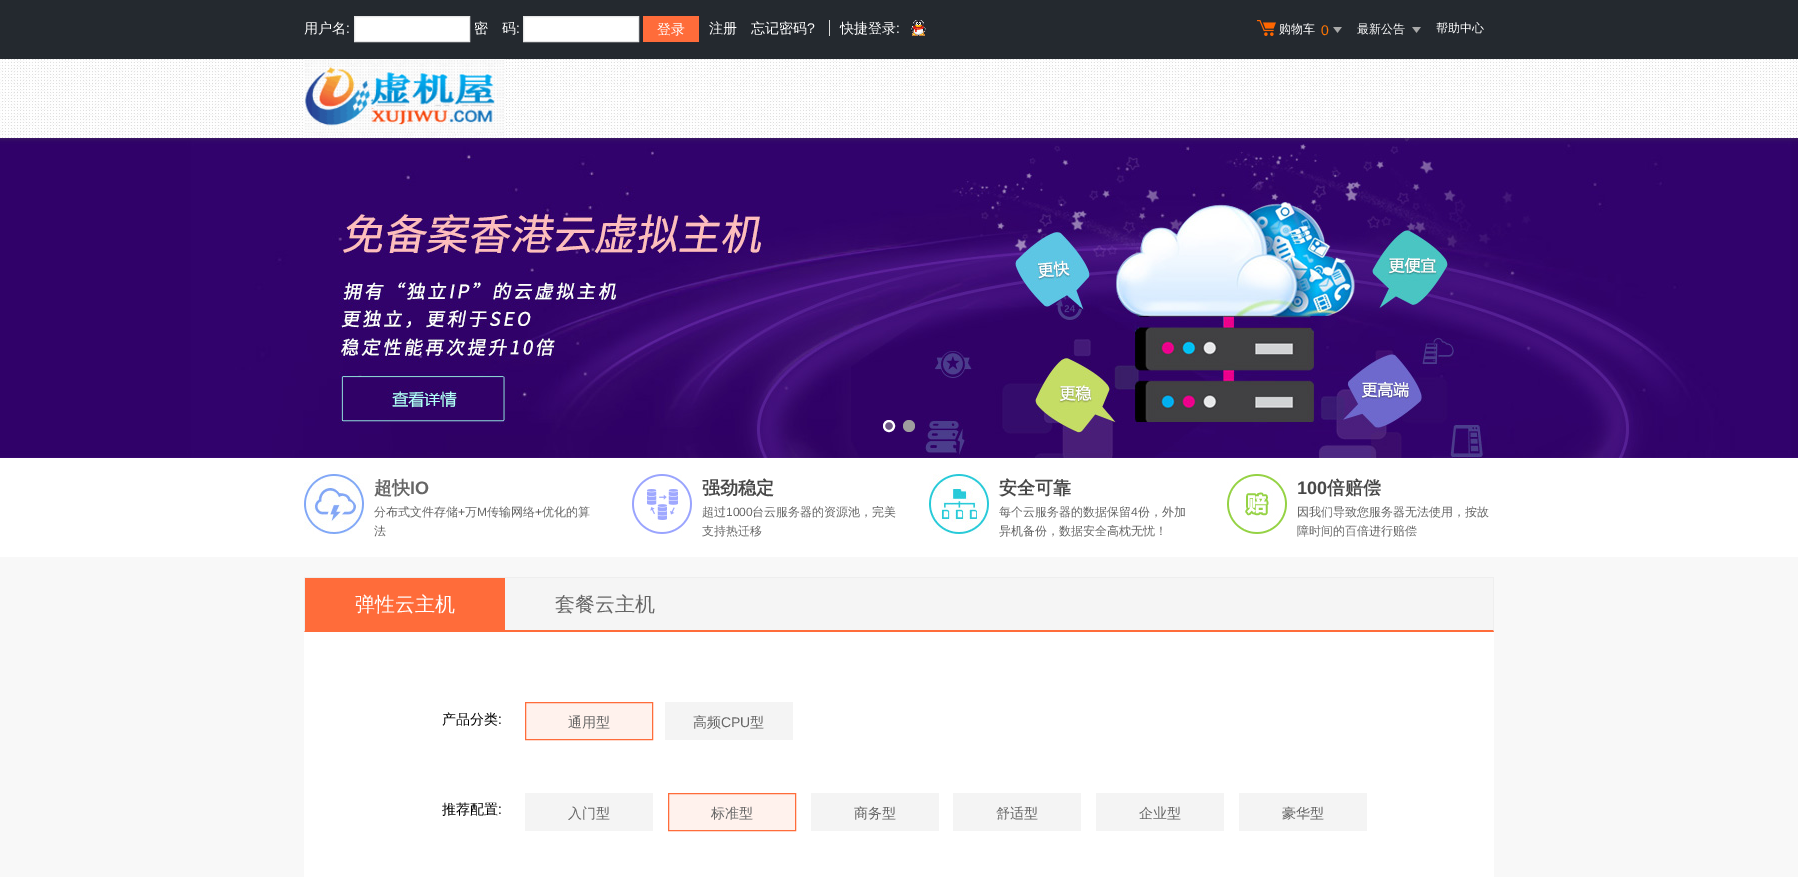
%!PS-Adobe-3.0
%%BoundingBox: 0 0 1798 877
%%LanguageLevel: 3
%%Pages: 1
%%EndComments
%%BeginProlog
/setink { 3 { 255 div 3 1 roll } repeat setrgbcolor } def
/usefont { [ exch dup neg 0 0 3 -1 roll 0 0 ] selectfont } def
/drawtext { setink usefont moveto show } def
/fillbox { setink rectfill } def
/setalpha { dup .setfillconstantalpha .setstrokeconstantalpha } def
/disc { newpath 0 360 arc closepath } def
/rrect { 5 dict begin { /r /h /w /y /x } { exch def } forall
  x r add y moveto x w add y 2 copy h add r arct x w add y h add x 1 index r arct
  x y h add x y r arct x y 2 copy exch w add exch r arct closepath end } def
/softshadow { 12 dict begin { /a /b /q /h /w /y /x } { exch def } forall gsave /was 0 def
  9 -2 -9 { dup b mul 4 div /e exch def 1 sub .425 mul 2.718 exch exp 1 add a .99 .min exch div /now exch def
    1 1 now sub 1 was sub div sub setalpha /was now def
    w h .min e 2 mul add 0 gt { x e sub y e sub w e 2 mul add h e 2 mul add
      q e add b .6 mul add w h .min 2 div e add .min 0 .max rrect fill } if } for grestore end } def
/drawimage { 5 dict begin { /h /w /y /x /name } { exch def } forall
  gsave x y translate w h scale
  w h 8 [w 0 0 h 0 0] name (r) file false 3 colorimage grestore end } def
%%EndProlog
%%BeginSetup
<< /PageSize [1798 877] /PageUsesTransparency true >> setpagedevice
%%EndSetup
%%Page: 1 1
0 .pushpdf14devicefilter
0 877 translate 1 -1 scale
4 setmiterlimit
0 0 1798 877 255 255 255 fillbox
(assets/img6.rgb) 0 138 1798 320 drawimage
70 70 70 setink
0 1 1798 138 0 2.5 0.39 softshadow
0 0 1798 59 36 41 47 fillbox
(用户名) 304 33 /WenQuanYiZenHei-Medium 14 255 255 255 drawtext
(:) 346 33 /LiberationSans-Regular 14 255 255 255 drawtext
354.5 16.5 moveto 469.5 16.5 lineto 469.5 41.5 lineto 354.5 41.5 lineto closepath gsave fill grestore
230 230 230 setink
stroke
(密　码) 474 33 /WenQuanYiZenHei-Medium 14 255 255 255 drawtext
(:) 516 33 /LiberationSans-Regular 14 255 255 255 drawtext
523.5 16.5 moveto 638.5 16.5 lineto 638.5 41.5 lineto 523.5 41.5 lineto closepath gsave fill grestore
230 230 230 setink
stroke
643 16 56 26 255 108 58 fillbox
(登录) 657 34 /WenQuanYiZenHei-Medium 14 255 255 255 drawtext
(注册) 709 33 /WenQuanYiZenHei-Medium 14 255 255 255 drawtext
(忘记密码) 751 33 /WenQuanYiZenHei-Medium 14 255 255 255 drawtext
(?) 807 33 /LiberationSans-Regular 14 255 255 255 drawtext
829 20 1 16 218 218 218 fillbox
(快捷登录) 840 33 /WenQuanYiZenHei-Medium 14 255 255 255 drawtext
(:) 896 33 /LiberationSans-Regular 14 255 255 255 drawtext
(assets/img1.rgb) 911 20 15 16 drawimage
(assets/img2.rgb) 1257 20 19 16 drawimage
(购物车) 1279 33 /WenQuanYiZenHei-Medium 12 255 255 255 drawtext
(0) 1321 35 /LiberationSans-Regular 14 254 116 2 drawtext
(assets/img3.rgb) 1333 27 9 6 drawimage
(最新公告) 1357 33 /WenQuanYiZenHei-Medium 12 255 255 255 drawtext
(assets/img3.rgb) 1412 27 9 6 drawimage
(帮助中心) 1436 32 /WenQuanYiZenHei-Medium 12 255 255 255 drawtext
(assets/img4.rgb) 0 59 1798 79 drawimage
(assets/img5.rgb) 304 59 200 79 drawimage
109 87 133 setink
889 426 5 disc gsave fill grestore
255 255 255 setink
2 setlinewidth
stroke
159 158 158 setink
909 426 6 disc fill
(assets/img7.rgb) 304 474 60 60 drawimage
(超快) 374 494 /WenQuanYiZenHei-Bold 18 102 102 102 drawtext
(IO) 410 494 /LiberationSans-Bold 18 102 102 102 drawtext
(分布式文件存储) 374 516 /WenQuanYiZenHei-Medium 12 102 102 102 drawtext
(+) 458 516 /LiberationSans-Regular 12 102 102 102 drawtext
(万) 465 516 /WenQuanYiZenHei-Medium 12 102 102 102 drawtext
(M) 477 516 /LiberationSans-Regular 12 102 102 102 drawtext
(传输网络) 487 516 /WenQuanYiZenHei-Medium 12 102 102 102 drawtext
(+) 535 516 /LiberationSans-Regular 12 102 102 102 drawtext
(优化的算) 542 516 /WenQuanYiZenHei-Medium 12 102 102 102 drawtext
(法) 374 535 /WenQuanYiZenHei-Medium 12 102 102 102 drawtext
(assets/img8.rgb) 632 474 60 60 drawimage
(强劲稳定) 702 494 /WenQuanYiZenHei-Bold 18 72 72 72 drawtext
(超过) 702 516 /WenQuanYiZenHei-Medium 12 102 102 102 drawtext
(1000) 726 516 /LiberationSans-Regular 12 102 102 102 drawtext
(台云服务器的资源池，完美) 752 516 /WenQuanYiZenHei-Medium 12 102 102 102 drawtext
(支持热迁移) 702 535 /WenQuanYiZenHei-Medium 12 102 102 102 drawtext
(assets/img9.rgb) 929 474 60 60 drawimage
(安全可靠) 999 494 /WenQuanYiZenHei-Bold 18 72 72 72 drawtext
(每个云服务器的数据保留) 999 516 /WenQuanYiZenHei-Medium 12 102 102 102 drawtext
(4) 1131 516 /LiberationSans-Regular 12 102 102 102 drawtext
(份，外加) 1138 516 /WenQuanYiZenHei-Medium 12 102 102 102 drawtext
(异机备份，数据安全高枕无忧！) 999 535 /WenQuanYiZenHei-Medium 12 102 102 102 drawtext
(assets/img10.rgb) 1227 474 60 60 drawimage
(100) 1297 494 /LiberationSans-Bold 18 72 72 72 drawtext
(倍赔偿) 1327 494 /WenQuanYiZenHei-Bold 18 72 72 72 drawtext
(因我们导致您服务器无法使用，按故) 1297 516 /WenQuanYiZenHei-Medium 12 102 102 102 drawtext
(障时间的百倍进行赔偿) 1297 535 /WenQuanYiZenHei-Medium 12 102 102 102 drawtext
0 557 1798 320 248 248 248 fillbox
505 578 988 52 245 245 245 fillbox
304 577 1190 1 238 238 238 fillbox
1494 577 moveto 1494 632 lineto 1493 630 lineto 1493 578 lineto closepath fill
255 108 58 setink
1494 632 moveto 304 632 lineto 305 630 lineto 1493 630 lineto closepath fill
238 238 238 setink
304 632 moveto 304 577 lineto 305 578 lineto 305 630 lineto closepath fill
305 578 200 52 255 108 58 fillbox
(弹性云主机) 355 611 /WenQuanYiZenHei-Medium 20 255 255 255 drawtext
(套餐云主机) 555 611 /WenQuanYiZenHei-Medium 20 102 102 102 drawtext
304 632 1190 245 255 255 255 fillbox
(产品分类) 442 724 /WenQuanYiZenHei-Medium 14 0 0 0 drawtext
(:) 498 724 /LiberationSans-Regular 14 0 0 0 drawtext
255 242 237 setink
525.5 702.5 moveto 652.5 702.5 lineto 652.5 739.5 lineto 525.5 739.5 lineto closepath gsave fill grestore
255 108 58 setink
1 setlinewidth
stroke
(通用型) 568 727 /WenQuanYiZenHei-Medium 14 102 102 102 drawtext
665 702 128 38 244 244 244 fillbox
(高频) 693 727 /WenQuanYiZenHei-Medium 14 102 102 102 drawtext
(CPU) 721 727 /LiberationSans-Regular 14 102 102 102 drawtext
(型) 750 727 /WenQuanYiZenHei-Medium 14 102 102 102 drawtext
(推荐配置) 442 814 /WenQuanYiZenHei-Medium 14 0 0 0 drawtext
(:) 498 814 /LiberationSans-Regular 14 0 0 0 drawtext
525 793 128 38 244 244 244 fillbox
(入门型) 568 818 /WenQuanYiZenHei-Medium 14 102 102 102 drawtext
255 242 237 setink
668.5 793.5 moveto 795.5 793.5 lineto 795.5 830.5 lineto 668.5 830.5 lineto closepath gsave fill grestore
255 108 58 setink
stroke
(标准型) 711 818 /WenQuanYiZenHei-Medium 14 102 102 102 drawtext
811 793 128 38 244 244 244 fillbox
(商务型) 854 818 /WenQuanYiZenHei-Medium 14 102 102 102 drawtext
953 793 128 38 244 244 244 fillbox
(舒适型) 996 818 /WenQuanYiZenHei-Medium 14 102 102 102 drawtext
1096 793 128 38 244 244 244 fillbox
(企业型) 1139 818 /WenQuanYiZenHei-Medium 14 102 102 102 drawtext
1239 793 128 38 244 244 244 fillbox
(豪华型) 1282 818 /WenQuanYiZenHei-Medium 14 102 102 102 drawtext
.poppdf14devicefilter showpage
%%EOF
